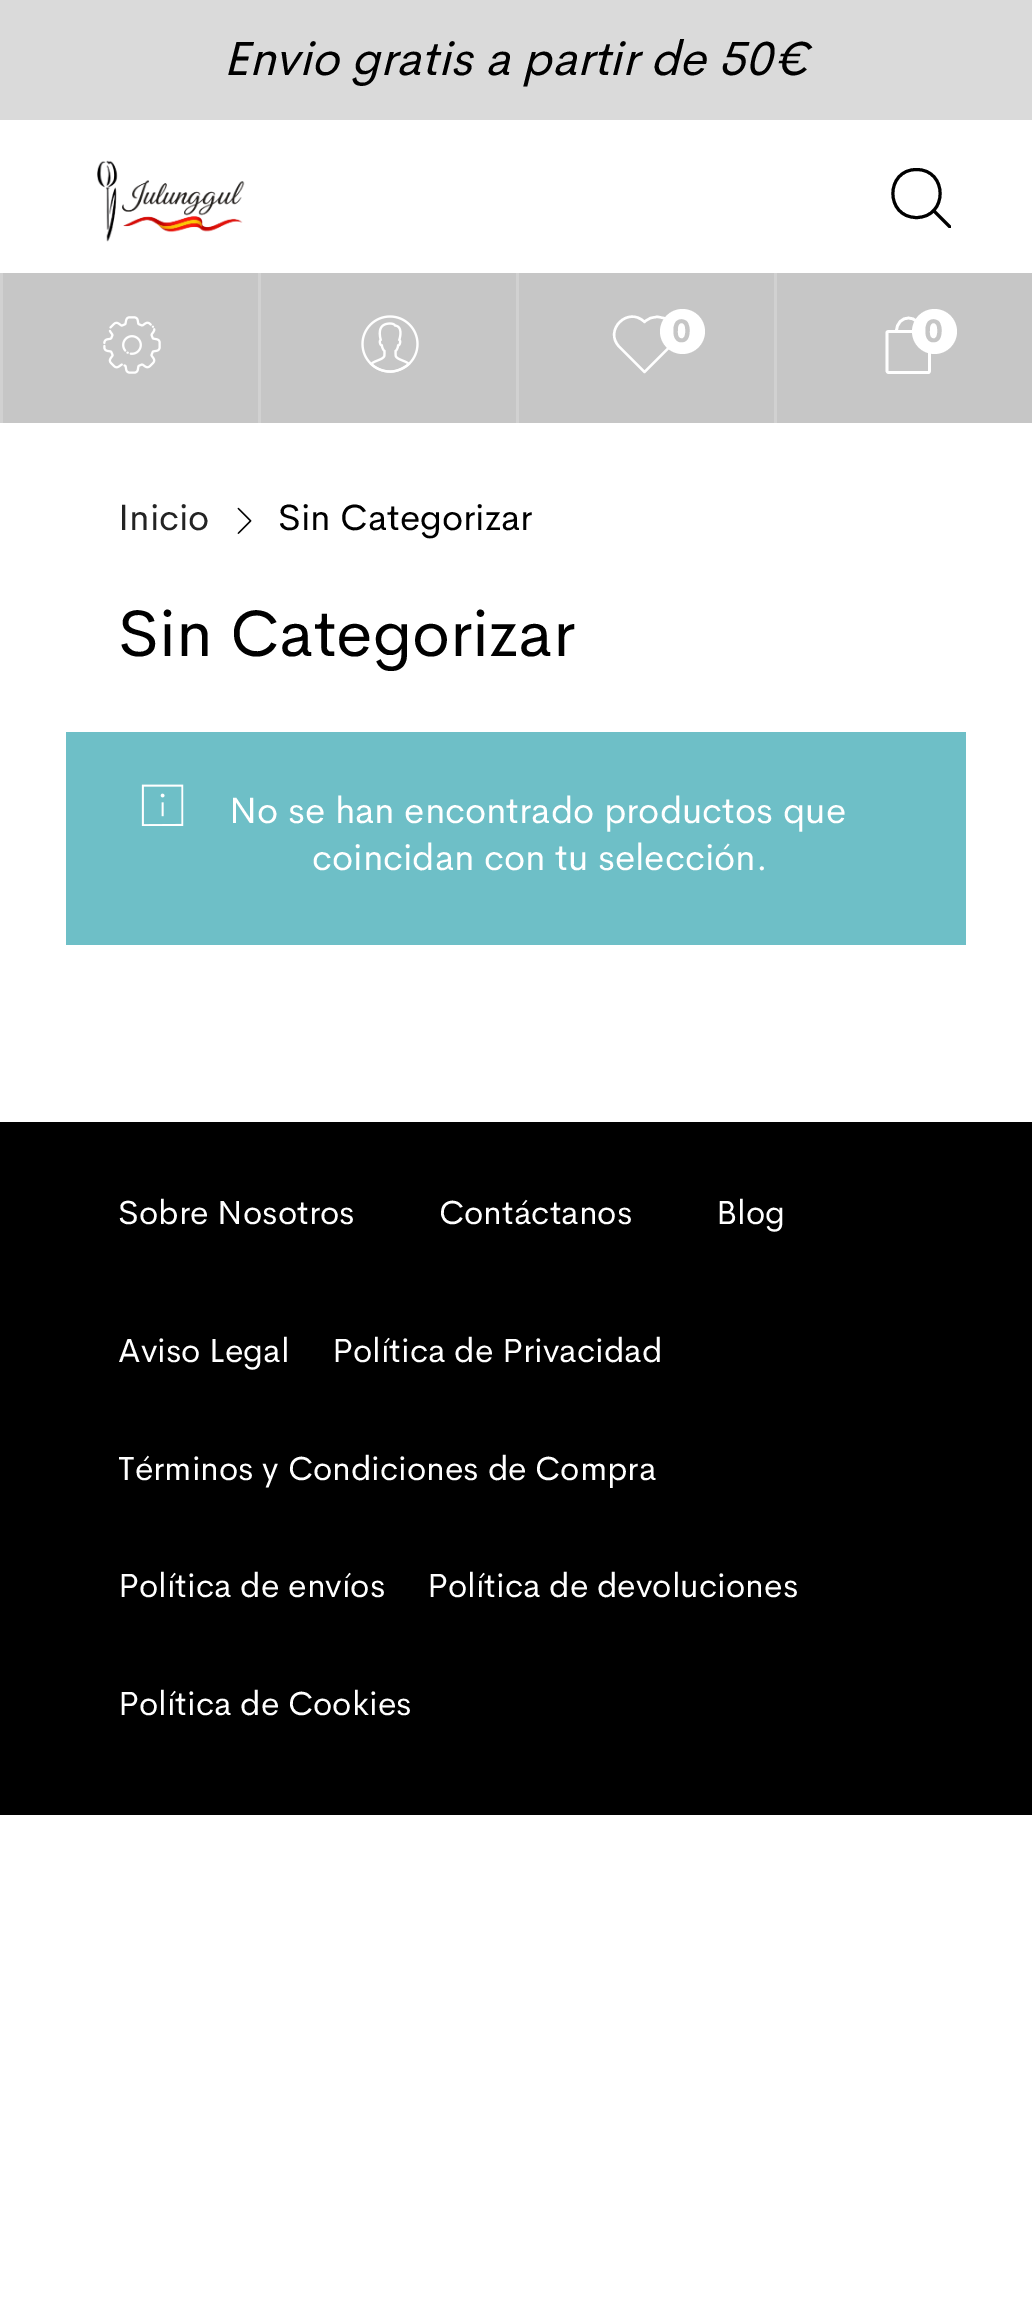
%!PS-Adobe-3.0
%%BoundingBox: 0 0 1032 2316
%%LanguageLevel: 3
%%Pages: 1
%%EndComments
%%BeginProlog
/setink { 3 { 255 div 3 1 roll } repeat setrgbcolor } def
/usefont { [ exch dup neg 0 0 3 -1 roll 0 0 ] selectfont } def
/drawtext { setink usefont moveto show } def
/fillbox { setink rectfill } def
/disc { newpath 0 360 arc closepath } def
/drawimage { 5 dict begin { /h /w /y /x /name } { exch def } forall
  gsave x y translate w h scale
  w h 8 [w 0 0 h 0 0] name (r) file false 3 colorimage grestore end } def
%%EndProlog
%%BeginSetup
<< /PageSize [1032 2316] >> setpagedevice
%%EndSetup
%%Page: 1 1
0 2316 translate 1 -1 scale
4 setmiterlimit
0 0 1032 2316 255 255 255 fillbox
0 0 1032 120 218 218 218 fillbox
(Envio gratis a partir de 50€) 223 75 /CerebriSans-Italic 48 0 0 0 drawtext
(assets/img1.rgb) 97 160 148 82 drawimage
gsave
891 168 60 60 rectclip
3 setlinewidth
2 setlinecap
952.5 229.5 moveto 933.5 210.5 lineto 916.5 217.5 moveto 948 217.5 948 169.5 916.5 169.5 curveto 885 169.5 885 217.5 916.5 217.5 curveto closepath stroke
grestore
3 273 1029 150 198 198 198 fillbox
0 273 3 150 209 209 209 fillbox
(assets/img2.rgb) 103 316 58 58 drawimage
258 273 3 150 209 209 209 fillbox
(assets/img3.rgb) 361 315 58 58 drawimage
516 273 3 150 209 209 209 fillbox
255 255 255 setink
2.4 setlinewidth
1 setlinecap
1 setlinejoin
619.5 347 moveto 603 330.5 628 305.5 644.5 322 curveto 651.5 315 663 315 669.5 322 curveto 676.5 329 676.5 340 669.5 347 curveto 644.5 372 lineto closepath stroke
682.5 331.5 22.5 disc fill
(0) 672 342 /CerebriSans-Bold 32 198 198 198 drawtext
774 273 3 150 209 209 209 fillbox
255 255 255 setink
2.7 setlinewidth
2 setlinecap
0 setlinejoin
928.5 372.5 moveto 888.5 372.5 lineto 887.5 372.5 887 371.5 887 371 curveto 887 332.5 lineto 887 332 887.5 331.5 888.5 331.5 curveto 928.5 331.5 lineto 929 331.5 929.5 332 929.5 332.5 curveto 929.5 371 lineto 929.5 371.5 929 372.5 928.5 372.5 curveto closepath stroke
0 setlinecap
896.5 331.5 moveto 896.5 313.5 920.5 313.5 920.5 331.5 curveto stroke
934.5 331.5 22.5 disc fill
(0) 924 342 /CerebriSans-Bold 32 198 198 198 drawtext
(Inicio) 118 530 /CerebriSans-Regular 36.75 35 35 35 drawtext
(assets/img4.rgb) 237 507 15 27 drawimage
(Sin Categorizar) 278 530 /CerebriSans-Regular 36.75 0 0 0 drawtext
(Sin Categorizar) 118 656 /CerebriSans-Regular 66 0 0 0 drawtext
66 732 900 213 110 191 199 fillbox
(assets/img5.rgb) 141 784 43 42 drawimage
(No se han encontrado productos que) 229 823 /CerebriSans-Regular 36.75 255 255 255 drawtext
(coincidan con tu selección.) 312 870 /CerebriSans-Regular 36.75 255 255 255 drawtext
0 1122 1032 693 0 0 0 fillbox
(Sobre Nosotros) 118 1224 /CerebriSans-Regular 33.6 255 255 255 drawtext
(Contáctanos) 439 1224 /CerebriSans-Regular 33.6 255 255 255 drawtext
(Blog) 716 1224 /CerebriSans-Regular 33.6 255 255 255 drawtext
(Aviso Legal) 118 1362 /CerebriSans-Regular 33.6 255 255 255 drawtext
(Política de Privacidad) 332 1362 /CerebriSans-Regular 33.6 255 255 255 drawtext
(Términos y Condiciones de Compra) 118 1480 /CerebriSans-Regular 33.6 255 255 255 drawtext
(Política de envíos) 118 1597 /CerebriSans-Regular 33.6 255 255 255 drawtext
(Política de devoluciones) 427 1597 /CerebriSans-Regular 33.6 255 255 255 drawtext
(Política de Cookies) 118 1715 /CerebriSans-Regular 33.6 255 255 255 drawtext
showpage
%%EOF
